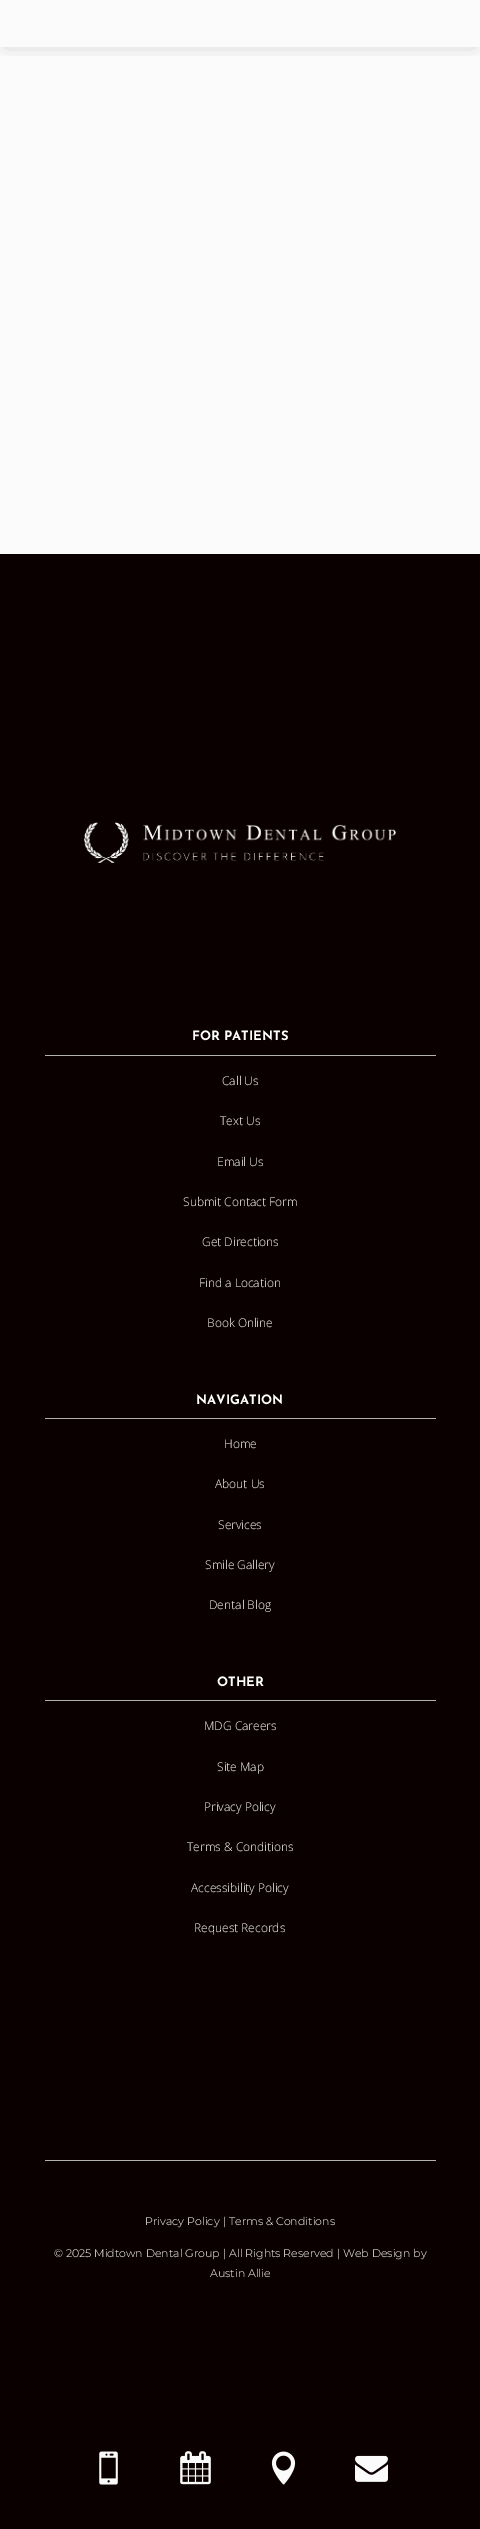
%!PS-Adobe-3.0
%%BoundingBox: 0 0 480 2529
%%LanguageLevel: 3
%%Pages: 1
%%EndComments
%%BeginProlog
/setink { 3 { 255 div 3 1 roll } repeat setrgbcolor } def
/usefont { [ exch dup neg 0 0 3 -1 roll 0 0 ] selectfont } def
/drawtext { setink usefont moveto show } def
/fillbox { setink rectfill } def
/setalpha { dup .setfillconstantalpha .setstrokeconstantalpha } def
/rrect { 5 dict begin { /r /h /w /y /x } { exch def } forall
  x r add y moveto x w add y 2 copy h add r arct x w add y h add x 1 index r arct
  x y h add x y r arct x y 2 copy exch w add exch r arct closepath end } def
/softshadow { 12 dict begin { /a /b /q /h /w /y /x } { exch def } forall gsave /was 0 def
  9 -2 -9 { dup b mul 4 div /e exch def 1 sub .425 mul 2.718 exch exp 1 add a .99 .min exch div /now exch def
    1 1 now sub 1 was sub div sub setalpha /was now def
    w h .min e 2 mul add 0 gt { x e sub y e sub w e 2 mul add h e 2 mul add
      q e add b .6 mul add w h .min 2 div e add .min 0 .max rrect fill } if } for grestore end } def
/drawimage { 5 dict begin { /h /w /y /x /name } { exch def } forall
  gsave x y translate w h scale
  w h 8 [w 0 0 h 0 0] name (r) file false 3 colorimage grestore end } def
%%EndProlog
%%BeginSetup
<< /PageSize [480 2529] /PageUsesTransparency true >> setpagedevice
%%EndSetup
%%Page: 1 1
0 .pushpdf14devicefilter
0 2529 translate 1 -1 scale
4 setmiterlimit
0 0 480 2529 251 251 251 fillbox
gsave
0 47 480 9 rectclip
0 0 0 setink
6 -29 468 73 0 9.5 0.2 softshadow
grestore
0 554 480 1975 10 0 0 fillbox
(assets/img1.rgb) 84 822 312 41 drawimage
45 1055 391 1 179 176 176 fillbox
(FOR PATIENTS) 192 1040 /JosefinSans-Bold 13 255 255 255 drawtext
(Call Us) 222 1085 /OpenSans-Light 12 255 255 255 drawtext
(Text Us) 220 1125 /OpenSans-Light 12 255 255 255 drawtext
(Email Us) 217 1166 /OpenSans-Light 12 255 255 255 drawtext
(Submit Contact Form) 183 1206 /OpenSans-Light 12 255 255 255 drawtext
(Get Directions) 202 1246 /OpenSans-Light 12 255 255 255 drawtext
(Find a Location) 199 1287 /OpenSans-Light 12 255 255 255 drawtext
(Book Online) 207 1327 /OpenSans-Light 12 255 255 255 drawtext
45 1418 391 1 179 176 176 fillbox
(NAVIGATION) 196 1404 /JosefinSans-Bold 13 255 255 255 drawtext
(Home) 224 1448 /OpenSans-Light 12 255 255 255 drawtext
(About Us) 215 1488 /OpenSans-Light 12 255 255 255 drawtext
(Services) 218 1529 /OpenSans-Light 12 255 255 255 drawtext
(Smile Gallery) 205 1569 /OpenSans-Light 12 255 255 255 drawtext
(Dental Blog) 209 1609 /OpenSans-Light 12 255 255 255 drawtext
45 1700 391 1 179 176 176 fillbox
(OTHER) 217 1686 /JosefinSans-Bold 13 255 255 255 drawtext
(MDG Careers) 204 1730 /OpenSans-Light 12 255 255 255 drawtext
(Site Map) 217 1771 /OpenSans-Light 12 255 255 255 drawtext
(Privacy Policy) 204 1811 /OpenSans-Light 12 255 255 255 drawtext
(Terms & Conditions) 187 1851 /OpenSans-Light 12 255 255 255 drawtext
(Accessibility Policy) 191 1892 /OpenSans-Light 12 255 255 255 drawtext
(Request Records) 194 1932 /OpenSans-Light 12 255 255 255 drawtext
45 2160 391 1 179 176 176 fillbox
(Privacy Policy) 145 2225 /Montserrat-Light 11 255 255 255 drawtext
(|) 223 2225 /Montserrat-Light 11 255 255 255 drawtext
(Terms & Conditions) 229 2225 /Montserrat-Light 11 255 255 255 drawtext
(© 2025) 54 2257 /Montserrat-Light 11 255 255 255 drawtext
(Midtown Dental Group) 94 2257 /Montserrat-Light 11 255 255 255 drawtext
(| All Rights Reserved | Web Design by) 223 2257 /Montserrat-Light 11 255 255 255 drawtext
(Austin Allie) 210 2277 /Montserrat-Light 11 255 255 255 drawtext
(assets/img2.rgb) 99 2451 19 34 drawimage
(assets/img3.rgb) 180 2451 31 34 drawimage
(assets/img4.rgb) 271 2451 25 34 drawimage
(assets/img5.rgb) 355 2455 33 27 drawimage
.poppdf14devicefilter showpage
%%EOF
